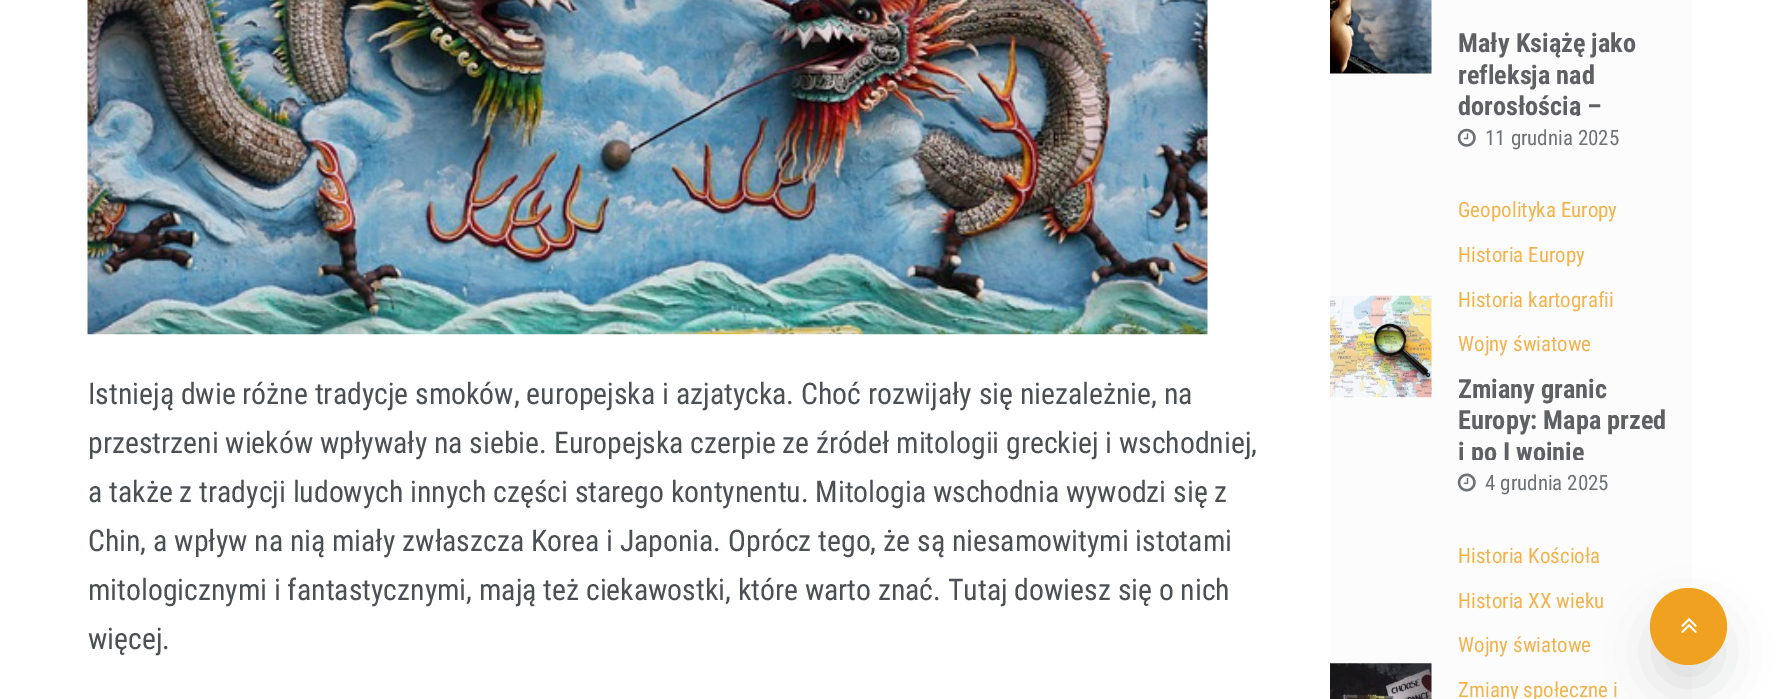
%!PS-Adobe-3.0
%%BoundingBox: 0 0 1779 699
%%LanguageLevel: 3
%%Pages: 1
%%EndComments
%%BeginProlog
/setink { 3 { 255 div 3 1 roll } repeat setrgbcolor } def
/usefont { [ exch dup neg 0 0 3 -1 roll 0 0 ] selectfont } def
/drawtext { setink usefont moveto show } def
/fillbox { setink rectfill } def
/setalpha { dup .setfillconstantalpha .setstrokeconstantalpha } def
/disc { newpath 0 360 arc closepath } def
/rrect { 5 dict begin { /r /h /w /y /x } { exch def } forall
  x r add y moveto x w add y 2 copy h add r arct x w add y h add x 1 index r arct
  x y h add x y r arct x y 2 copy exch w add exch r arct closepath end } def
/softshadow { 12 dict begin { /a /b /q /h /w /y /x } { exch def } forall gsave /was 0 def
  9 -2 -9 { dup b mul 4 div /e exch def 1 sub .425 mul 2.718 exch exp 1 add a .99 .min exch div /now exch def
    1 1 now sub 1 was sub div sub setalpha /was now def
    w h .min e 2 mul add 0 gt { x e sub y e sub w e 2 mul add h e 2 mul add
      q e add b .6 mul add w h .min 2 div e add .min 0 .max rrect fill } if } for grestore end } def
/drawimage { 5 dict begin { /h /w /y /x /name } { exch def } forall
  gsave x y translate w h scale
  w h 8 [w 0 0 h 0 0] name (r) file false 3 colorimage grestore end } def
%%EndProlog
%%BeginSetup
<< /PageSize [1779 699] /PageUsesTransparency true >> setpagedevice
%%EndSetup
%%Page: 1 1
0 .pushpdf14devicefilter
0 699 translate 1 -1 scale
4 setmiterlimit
0 0 1779 699 255 255 255 fillbox
(assets/img1.rgb) 87 0 1121 335 drawimage
(Istnieją dwie różne tradycje smoków, europejska i azjatycka. Choć rozwijały się niezależnie, na) 88 404 /RobotoCondensed-Regular 29.75 76 79 83 drawtext
(przestrzeni wieków wpływały na siebie. Europejska czerpie ze źródeł mitologii greckiej i wschodniej,) 88 453 /RobotoCondensed-Regular 29.75 76 79 83 drawtext
(a także z tradycji ludowych innych części starego kontynentu. Mitologia wschodnia wywodzi się z) 88 502 /RobotoCondensed-Regular 29.75 76 79 83 drawtext
(Chin, a wpływ na nią miały zwłaszcza Korea i Japonia. Oprócz tego, że są niesamowitymi istotami) 88 551 /RobotoCondensed-Regular 29.75 76 79 83 drawtext
(mitologicznymi i fantastycznymi, mają też ciekawostki, które warto znać. Tutaj dowiesz się o nich) 88 600 /RobotoCondensed-Regular 29.75 76 79 83 drawtext
(więcej.) 88 649 /RobotoCondensed-Regular 29.75 76 79 83 drawtext
1330 0 362 699 252 252 252 fillbox
(assets/img2.rgb) 1330 0 102 74 drawimage
(Mały Książę jako) 1458 52 /RobotoCondensed-Bold 26.25 94 96 100 drawtext
(refleksja nad) 1458 84 /RobotoCondensed-Bold 26.25 94 96 100 drawtext
gsave
1458 28 220 88 rectclip
(dorosłością –) 1458 115 /RobotoCondensed-Bold 26.25 94 96 100 drawtext
grestore
(assets/img3.rgb) 1457 128 19 19 drawimage
(11 grudnia 2025) 1485 145 /RobotoCondensed-Regular 21 111 114 117 drawtext
(assets/img4.rgb) 1330 295 102 103 drawimage
(Geopolityka Europy) 1458 217 /RobotoCondensed-Regular 21 242 179 76 drawtext
(Historia Europy) 1458 262 /RobotoCondensed-Regular 21 242 179 76 drawtext
(Historia kartografii) 1458 307 /RobotoCondensed-Regular 21 242 179 76 drawtext
(Wojny światowe) 1458 351 /RobotoCondensed-Regular 21 242 179 76 drawtext
(Zmiany granic) 1458 398 /RobotoCondensed-Bold 26.25 94 96 100 drawtext
(Europy: Mapa przed) 1458 429 /RobotoCondensed-Bold 26.25 94 96 100 drawtext
gsave
1458 373 220 87 rectclip
(i po I wojnie) 1458 461 /RobotoCondensed-Bold 26.25 94 96 100 drawtext
grestore
(assets/img5.rgb) 1457 473 19 19 drawimage
(4 grudnia 2025) 1485 490 /RobotoCondensed-Regular 21 111 114 117 drawtext
(assets/img6.rgb) 1330 663 102 36 drawimage
(Historia Kościoła) 1458 563 /RobotoCondensed-Regular 21 242 179 76 drawtext
(Historia XX wieku) 1458 608 /RobotoCondensed-Regular 21 242 179 76 drawtext
(Wojny światowe) 1458 652 /RobotoCondensed-Regular 21 242 179 76 drawtext
(Zmiany społeczne i) 1458 697 /RobotoCondensed-Regular 21 242 179 76 drawtext
14 17 20 setink
1657 620 63 63 31.5 24.5 0.15 softshadow
240 161 32 setink
1688.5 626.5 38.5 disc fill
(assets/img7.rgb) 1681 618 16 15 drawimage
.poppdf14devicefilter showpage
%%EOF
